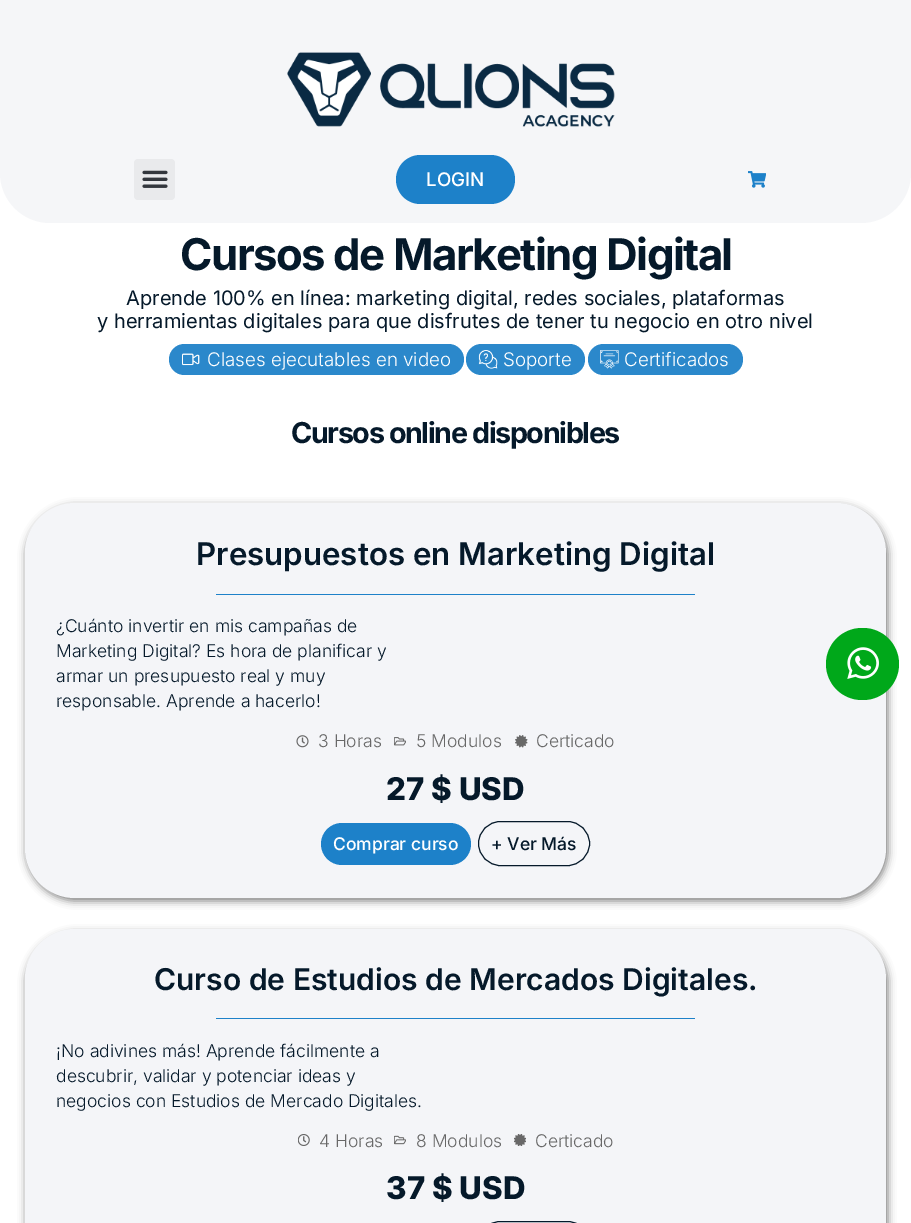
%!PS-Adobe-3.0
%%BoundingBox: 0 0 911 1223
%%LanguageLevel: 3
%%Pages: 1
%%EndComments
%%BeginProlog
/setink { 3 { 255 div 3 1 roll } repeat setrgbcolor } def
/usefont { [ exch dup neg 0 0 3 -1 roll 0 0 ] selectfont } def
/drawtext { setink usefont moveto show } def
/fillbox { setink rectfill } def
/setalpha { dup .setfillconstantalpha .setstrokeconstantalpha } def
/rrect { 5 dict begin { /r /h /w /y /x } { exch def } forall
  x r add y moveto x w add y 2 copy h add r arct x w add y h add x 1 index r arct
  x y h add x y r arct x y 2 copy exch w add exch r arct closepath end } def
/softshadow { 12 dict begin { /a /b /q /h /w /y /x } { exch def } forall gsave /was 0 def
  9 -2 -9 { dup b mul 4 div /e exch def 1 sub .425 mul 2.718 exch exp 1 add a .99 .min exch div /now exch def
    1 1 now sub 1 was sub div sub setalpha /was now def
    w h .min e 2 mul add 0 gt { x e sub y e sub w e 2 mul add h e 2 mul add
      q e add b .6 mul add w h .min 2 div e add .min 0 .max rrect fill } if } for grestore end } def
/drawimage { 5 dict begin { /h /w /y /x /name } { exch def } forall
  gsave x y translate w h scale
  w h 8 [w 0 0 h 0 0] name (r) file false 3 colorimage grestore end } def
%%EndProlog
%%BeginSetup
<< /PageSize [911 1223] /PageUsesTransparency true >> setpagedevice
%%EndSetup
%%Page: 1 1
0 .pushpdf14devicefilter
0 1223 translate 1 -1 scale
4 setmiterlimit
0 0 911 1223 255 255 255 fillbox
245 246 248 setink
0 0 moveto 911 0 lineto 911 173 lineto 911 200.5 888.5 223 861 223 curveto 50 223 lineto 22.5 223 0 200.5 0 173 curveto closepath fill
(assets/img1.rgb) 287 52 328 75 drawimage
233 234 236 setink
134 159 41 41 4 rrect fill
(assets/img2.rgb) 142 170 26 18 drawimage
29 129 201 setink
396 155 119 49 24.5 rrect fill
(LOGIN) 426 186 /Inter-Medium 18.75 255 255 255 drawtext
(assets/img3.rgb) 748 171 18 17 drawimage
/Inter-Bold 43.75 usefont
5 25 42 setink
180 270 moveto -1.5 0 (Cursos de Marketing Digital) ashow
(Aprende 100% en línea: marketing digital, redes sociales, plataformas) 126 305 /Inter-Regular 20 5 25 42 drawtext
(y herramientas digitales para que disfrutes de tener tu negocio en otro nivel) 97 328 /Inter-Regular 20 5 25 42 drawtext
43 136 203 setink
169 344 295 31 15.5 rrect fill
(assets/img4.rgb) 182 353 18 13 drawimage
(Clases ejecutables en video) 207 366 /Inter-Light 18.75 255 255 255 drawtext
43 136 203 setink
466 344 119 31 15.5 rrect fill
(assets/img5.rgb) 478 350 20 19 drawimage
(Soporte) 503 366 /Inter-Light 18.75 255 255 255 drawtext
43 136 203 setink
588 344 155 31 15.5 rrect fill
(assets/img6.rgb) 600 350 19 19 drawimage
(Certificados) 624 366 /Inter-Light 18.75 255 255 255 drawtext
/Inter-Bold 28.75 usefont
5 25 42 setink
291 443 moveto -1.4 0 (Cursos online disponibles) ashow
0 0 0 setink
26 506 862 395 50 4 0.5 softshadow
244 245 248 setink
25 503 861 395 50 rrect fill
(Presupuestos en Marketing Digital) 196 565 /Inter-SemiBold 31.25 5 25 42 drawtext
216 594 479 1 29 129 201 fillbox
(¿Cuánto invertir en mis campañas de) 56 632 /Inter-Light 17.5 5 25 42 drawtext
(Marketing Digital? Es hora de planificar y) 56 657 /Inter-Light 17.5 5 25 42 drawtext
(armar un presupuesto real y muy) 56 682 /Inter-Light 17.5 5 25 42 drawtext
(responsable. Aprende a hacerlo!) 56 707 /Inter-Light 17.5 5 25 42 drawtext
(assets/img7.rgb) 296 735 13 13 drawimage
(3 Horas) 318 747 /Inter-Light 17.5 104 104 104 drawtext
(assets/img8.rgb) 394 737 12 9 drawimage
(5 Modulos) 416 747 /Inter-Light 17.5 104 104 104 drawtext
(assets/img9.rgb) 515 735 13 13 drawimage
(Certicado) 536 747 /Inter-Light 17.5 104 104 104 drawtext
(27 $ USD) 386 800 /Inter-ExtraBold 31.25 5 25 42 drawtext
29 129 201 setink
321 823 150 42 21 rrect fill
(Comprar curso) 333 850 /Inter-Medium 17.5 255 255 255 drawtext
5 25 42 setink
478.5 821.5 111 44 22 rrect stroke
(+ Ver Más) 491 850 /Inter-Medium 17.5 5 25 42 drawtext
0 0 0 setink
26 933 862 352 50 4 0.5 softshadow
244 245 248 setink
25 929 861 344 50 rrect fill
(Curso de Estudios de Mercados Digitales.) 154 990 /Inter-SemiBold 30 5 25 42 drawtext
216 1018 479 1 29 129 201 fillbox
(¡No adivines más! Aprende fácilmente a) 56 1057 /Inter-Light 17.5 5 25 42 drawtext
(descubrir, validar y potenciar ideas y) 56 1082 /Inter-Light 17.5 5 25 42 drawtext
(negocios con Estudios de Mercado Digitales.) 56 1107 /Inter-Light 17.5 5 25 42 drawtext
(assets/img10.rgb) 298 1134 12 12 drawimage
(4 Horas) 319 1147 /Inter-Light 17.5 104 104 104 drawtext
(assets/img11.rgb) 394 1135 12 10 drawimage
(8 Modulos) 416 1147 /Inter-Light 17.5 104 104 104 drawtext
(assets/img12.rgb) 514 1134 12 12 drawimage
(Certicado) 535 1147 /Inter-Light 17.5 104 104 104 drawtext
(37 $ USD) 386 1199 /Inter-ExtraBold 31.25 5 25 42 drawtext
478.5 1221.5 111 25 22 rrect stroke
0 168 26 setink
826 628 73 72 36 rrect fill
(assets/img13.rgb) 847 647 32 32 drawimage
.poppdf14devicefilter showpage
%%EOF
